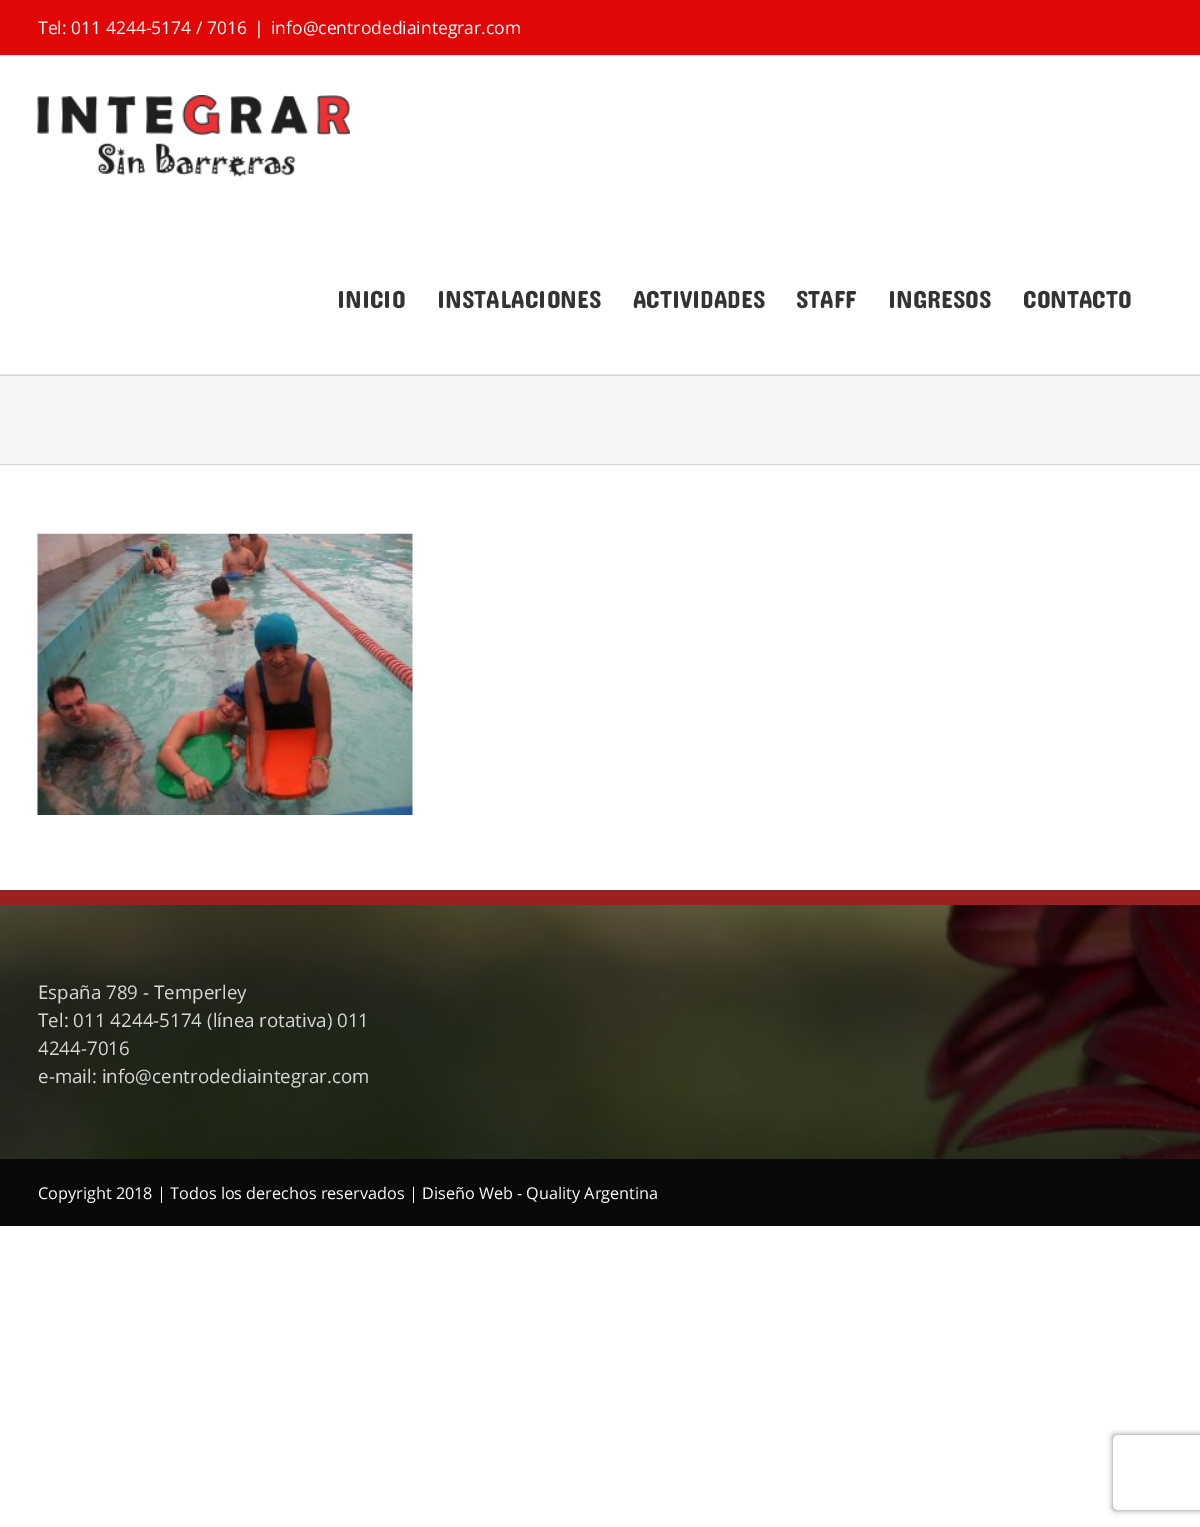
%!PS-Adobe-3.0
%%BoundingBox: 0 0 1200 1527
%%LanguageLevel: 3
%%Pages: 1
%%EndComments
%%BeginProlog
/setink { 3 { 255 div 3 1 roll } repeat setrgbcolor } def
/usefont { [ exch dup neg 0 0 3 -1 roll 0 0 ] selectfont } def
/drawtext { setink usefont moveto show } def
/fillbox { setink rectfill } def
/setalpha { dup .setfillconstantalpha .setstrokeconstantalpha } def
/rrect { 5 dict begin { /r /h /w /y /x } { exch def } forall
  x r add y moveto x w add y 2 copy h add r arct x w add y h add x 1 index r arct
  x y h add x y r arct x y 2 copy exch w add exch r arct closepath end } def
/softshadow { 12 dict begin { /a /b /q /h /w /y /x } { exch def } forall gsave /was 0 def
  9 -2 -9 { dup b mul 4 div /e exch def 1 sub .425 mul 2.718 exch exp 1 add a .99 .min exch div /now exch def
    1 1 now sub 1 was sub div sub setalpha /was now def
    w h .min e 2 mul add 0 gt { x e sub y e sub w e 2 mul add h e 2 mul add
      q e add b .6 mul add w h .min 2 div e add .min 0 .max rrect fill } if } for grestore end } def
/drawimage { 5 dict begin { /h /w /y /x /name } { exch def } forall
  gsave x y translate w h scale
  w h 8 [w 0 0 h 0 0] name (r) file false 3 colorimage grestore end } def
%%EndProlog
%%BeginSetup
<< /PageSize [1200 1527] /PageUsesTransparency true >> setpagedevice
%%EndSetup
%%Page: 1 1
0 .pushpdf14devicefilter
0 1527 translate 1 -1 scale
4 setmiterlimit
0 0 1200 1527 255 255 255 fillbox
0 0 1200 55 225 7 7 fillbox
0 55 1200 1 229 229 229 fillbox
(Tel: 011 4244-5174 / 7016) 38 34 /OpenSans-Regular 17.5 255 255 255 drawtext
(|) 254 34 /OpenSans-Regular 17.5 255 255 255 drawtext
(info@centrodediaintegrar.com) 271 34 /OpenSans-Regular 17.5 255 255 255 drawtext
0 374 1200 1 229 229 229 fillbox
(assets/img1.rgb) 37 95 313 82 drawimage
(INICIO) 337 308 /ConcertOne-Regular 25 51 51 51 drawtext
(INSTALACIONES) 437 308 /ConcertOne-Regular 25 51 51 51 drawtext
(ACTIVIDADES) 633 308 /ConcertOne-Regular 25 51 51 51 drawtext
(STAFF) 796 308 /ConcertOne-Regular 25 51 51 51 drawtext
(INGRESOS) 888 308 /ConcertOne-Regular 25 51 51 51 drawtext
(CONTACTO) 1023 308 /ConcertOne-Regular 25 51 51 51 drawtext
0 376 1200 88 246 246 246 fillbox
0 375 1200 1 210 211 212 fillbox
0 464 1200 1 210 211 212 fillbox
(assets/img2.rgb) 37 533 376 282 drawimage
(assets/img3.rgb) 0 905 1200 254 drawimage
0 890 1200 15 155 32 32 fillbox
(España 789 - Temperley) 38 999 /OpenSans-Regular 18.75 214 214 214 drawtext
(Tel: 011 4244-5174 \(línea rotativa\) 011) 38 1027 /OpenSans-Regular 18.75 214 214 214 drawtext
(4244-7016) 38 1055 /OpenSans-Regular 18.75 214 214 214 drawtext
(e-mail: info@centrodediaintegrar.com) 38 1083 /OpenSans-Regular 18.75 214 214 214 drawtext
0 1159 1200 67 10 9 9 fillbox
(Copyright 2018 | Todos los derechos reservados | Diseño Web - Quality Argentina) 38 1199 /OpenSans-Regular 16.25 255 255 255 drawtext
gsave
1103 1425 moveto 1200 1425 lineto 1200 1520 lineto 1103 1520 lineto closepath 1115.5 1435 moveto 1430.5 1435 lineto 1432 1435 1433 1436 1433 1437.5 curveto 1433 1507.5 lineto 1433 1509 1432 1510 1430.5 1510 curveto 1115.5 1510 lineto 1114 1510 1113 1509 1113 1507.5 curveto 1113 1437.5 lineto 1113 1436 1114 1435 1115.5 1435 curveto closepath eoclip newpath
128 128 128 setink
1113 1435 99 75 2.5 3 1 softshadow
grestore
.poppdf14devicefilter showpage
%%EOF
